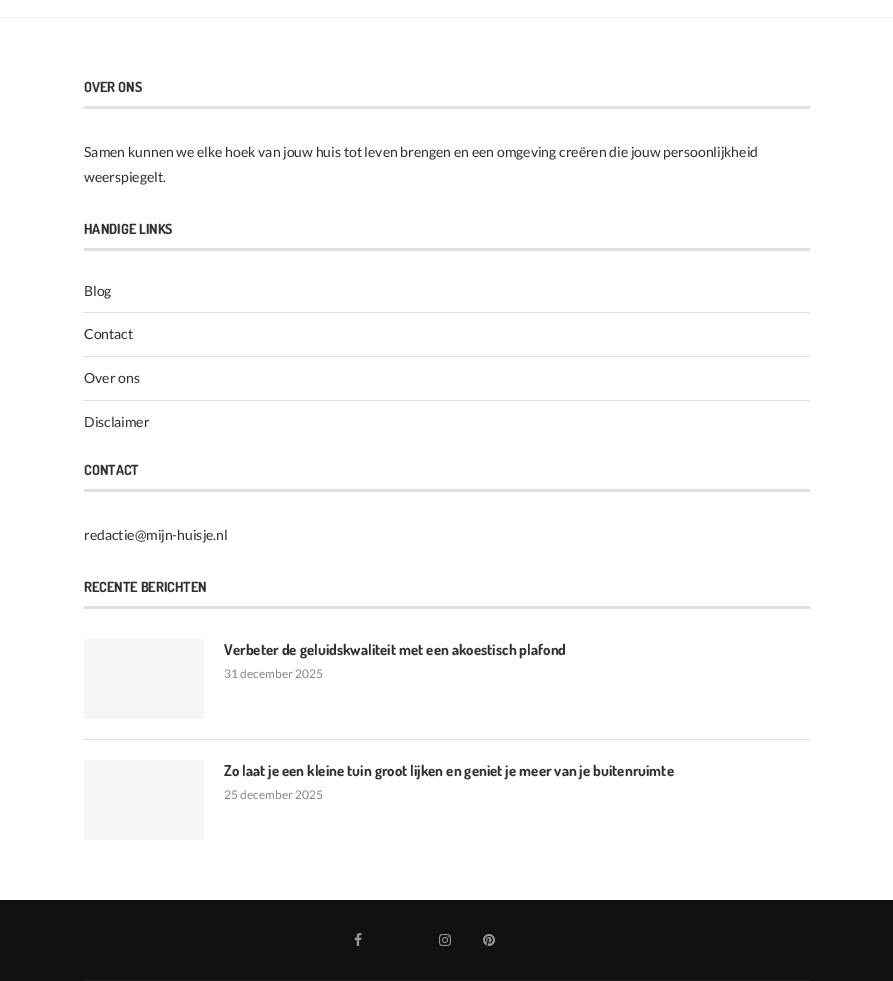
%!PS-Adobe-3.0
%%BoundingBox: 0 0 893 981
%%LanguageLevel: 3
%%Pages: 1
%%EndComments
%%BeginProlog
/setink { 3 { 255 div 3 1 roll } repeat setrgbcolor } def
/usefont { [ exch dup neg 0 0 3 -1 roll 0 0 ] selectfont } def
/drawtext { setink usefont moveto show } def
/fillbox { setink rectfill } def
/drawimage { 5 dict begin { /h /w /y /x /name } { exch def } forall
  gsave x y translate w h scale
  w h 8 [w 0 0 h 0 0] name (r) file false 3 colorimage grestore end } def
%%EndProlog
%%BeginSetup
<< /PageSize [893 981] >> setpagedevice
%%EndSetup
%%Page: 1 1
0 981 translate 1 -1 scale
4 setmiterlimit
0 0 893 981 255 255 255 fillbox
0 17 893 1 236 236 236 fillbox
84 106 726 3 224 224 224 fillbox
(OVER ONS) 84 92 /Dosis-Bold 14 49 49 49 drawtext
(Samen kunnen we elke hoek van jouw huis tot leven brengen en een omgeving creëren die jouw persoonlijkheid) 84 157 /Lato-Regular 14 49 49 49 drawtext
(weerspiegelt.) 84 182 /Lato-Regular 14 49 49 49 drawtext
84 248 726 3 224 224 224 fillbox
(HANDIGE LINKS) 84 234 /Dosis-Bold 14 49 49 49 drawtext
84 312 726 1 222 222 222 fillbox
(Blog) 84 296 /Lato-Regular 14 49 49 49 drawtext
84 356 726 1 222 222 222 fillbox
(Contact) 84 339 /Lato-Regular 14 49 49 49 drawtext
84 400 726 1 222 222 222 fillbox
(Over ons) 84 383 /Lato-Regular 14 49 49 49 drawtext
(Disclaimer) 84 427 /Lato-Regular 14 49 49 49 drawtext
84 489 726 3 224 224 224 fillbox
(CONTACT) 84 475 /Dosis-Bold 14 49 49 49 drawtext
(redactie@mijn-huisje.nl) 84 540 /Lato-Regular 14 49 49 49 drawtext
84 606 726 3 224 224 224 fillbox
(RECENTE BERICHTEN) 84 592 /Dosis-Bold 14 49 49 49 drawtext
84 739 726 1 222 222 222 fillbox
84 639 120 80 245 245 245 fillbox
(Verbeter de geluidskwaliteit met een akoestisch plafond) 224 655 /Dosis-Bold 15 49 49 49 drawtext
(31 december 2025) 224 678 /Lato-Regular 12 136 136 136 drawtext
84 760 120 80 245 245 245 fillbox
(Zo laat je een kleine tuin groot lijken en geniet je meer van je buitenruimte) 224 776 /Dosis-Bold 15 49 49 49 drawtext
(25 december 2025) 224 799 /Lato-Regular 12 136 136 136 drawtext
0 900 893 81 17 17 17 fillbox
84 980 726 1 33 33 33 fillbox
(assets/img1.rgb) 354 933 8 13 drawimage
(assets/img2.rgb) 439 934 12 12 drawimage
(assets/img3.rgb) 483 934 12 12 drawimage
showpage
%%EOF
